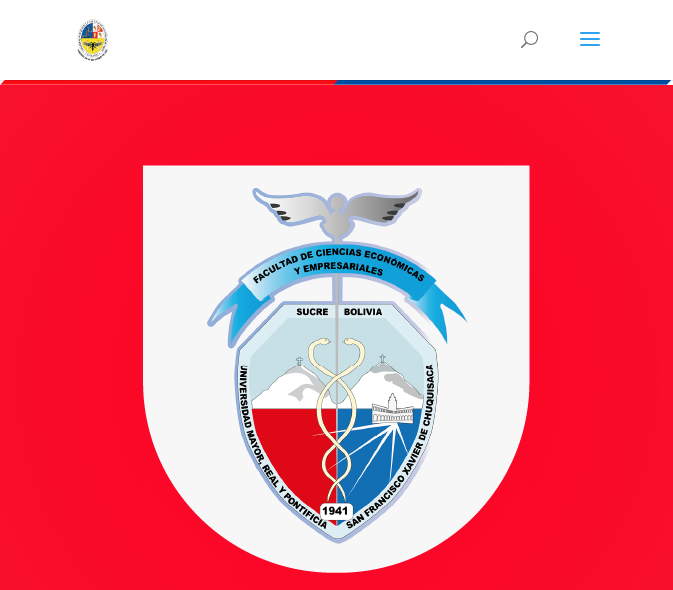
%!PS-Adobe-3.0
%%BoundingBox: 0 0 673 590
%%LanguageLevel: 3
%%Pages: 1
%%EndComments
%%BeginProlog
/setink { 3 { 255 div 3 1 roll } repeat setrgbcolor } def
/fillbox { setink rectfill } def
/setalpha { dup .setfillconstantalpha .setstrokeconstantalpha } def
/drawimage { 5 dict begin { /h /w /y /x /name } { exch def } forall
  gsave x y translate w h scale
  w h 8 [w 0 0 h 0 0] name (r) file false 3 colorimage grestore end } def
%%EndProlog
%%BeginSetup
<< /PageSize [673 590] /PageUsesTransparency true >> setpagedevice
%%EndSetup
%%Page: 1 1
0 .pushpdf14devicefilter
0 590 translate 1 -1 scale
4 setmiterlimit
0 0 673 590 255 255 255 fillbox
(assets/img4.rgb) 0 80 671 5 drawimage
0.1 setalpha
0 80 673 1 0 0 0 fillbox
1 setalpha
(assets/img1.rgb) 77 19 31 42 drawimage
(assets/img2.rgb) 521 31 17 18 drawimage
(assets/img3.rgb) 580 32 20 14 drawimage
gsave 0 85 moveto 673 85 lineto 673 590 lineto 0 590 lineto closepath clip newpath 337 380 translate 448 448 scale
<< /ShadingType 3 /ColorSpace /DeviceRGB /Coords [0 0 0 0 0 1] /Extend [true true] /Function << /FunctionType 2 /Domain [0 1] /C0 [0.996 0 0.141] /C1 [0.973 0.071 0.176] /N 1 >> >> shfill grestore
(assets/img5.rgb) 143 165 387 408 drawimage
.poppdf14devicefilter showpage
%%EOF
